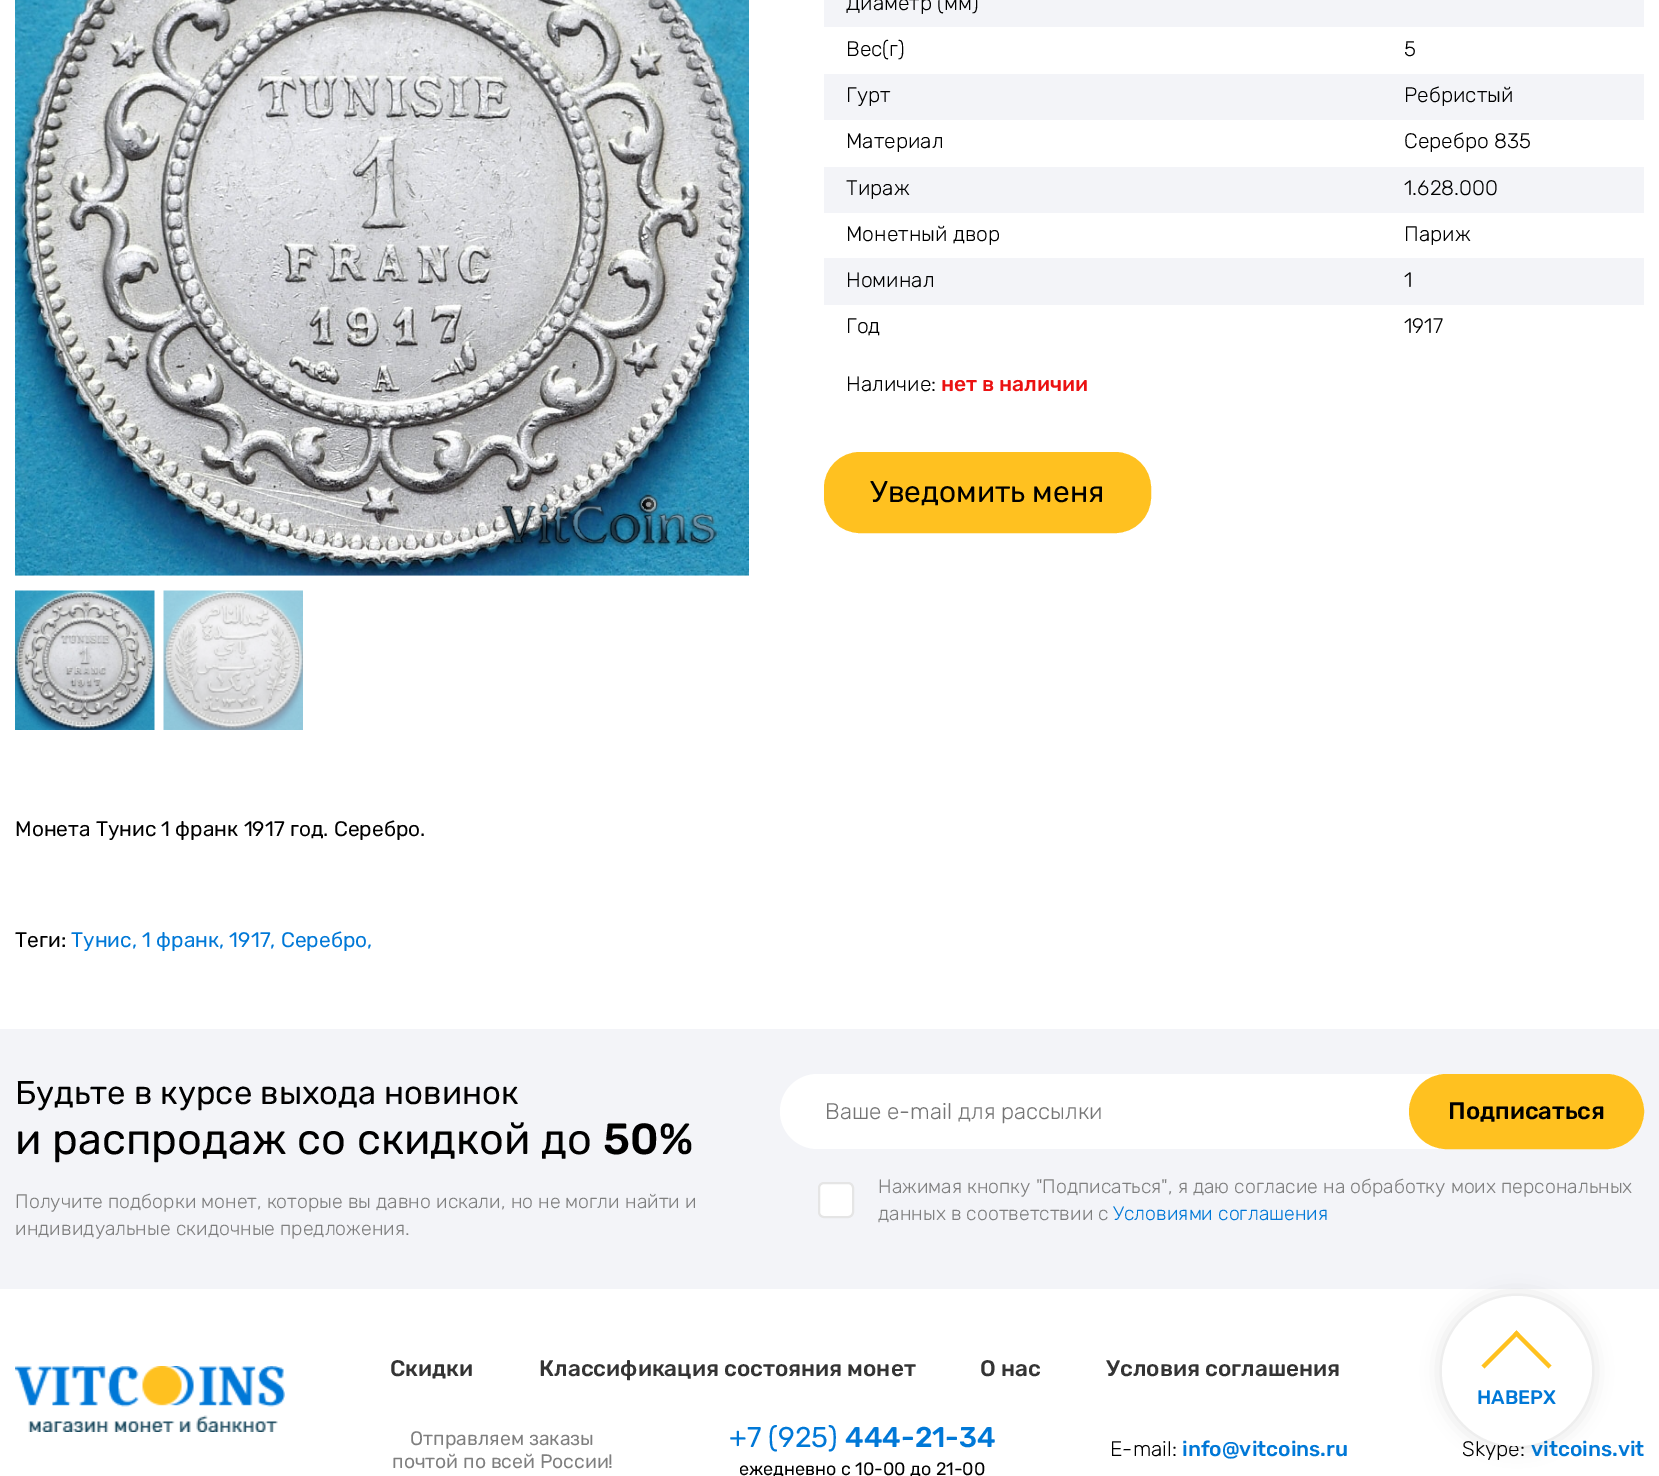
%!PS-Adobe-3.0
%%BoundingBox: 0 0 1659 1476
%%LanguageLevel: 3
%%Pages: 1
%%EndComments
%%BeginProlog
/setink { 3 { 255 div 3 1 roll } repeat setrgbcolor } def
/usefont { [ exch dup neg 0 0 3 -1 roll 0 0 ] selectfont } def
/drawtext { setink usefont moveto show } def
/fillbox { setink rectfill } def
/setalpha { dup .setfillconstantalpha .setstrokeconstantalpha } def
/disc { newpath 0 360 arc closepath } def
/rrect { 5 dict begin { /r /h /w /y /x } { exch def } forall
  x r add y moveto x w add y 2 copy h add r arct x w add y h add x 1 index r arct
  x y h add x y r arct x y 2 copy exch w add exch r arct closepath end } def
/softshadow { 12 dict begin { /a /b /q /h /w /y /x } { exch def } forall gsave /was 0 def
  9 -2 -9 { dup b mul 4 div /e exch def 1 sub .425 mul 2.718 exch exp 1 add a .99 .min exch div /now exch def
    1 1 now sub 1 was sub div sub setalpha /was now def
    w h .min e 2 mul add 0 gt { x e sub y e sub w e 2 mul add h e 2 mul add
      q e add b .6 mul add w h .min 2 div e add .min 0 .max rrect fill } if } for grestore end } def
/drawimage { 5 dict begin { /h /w /y /x /name } { exch def } forall
  gsave x y translate w h scale
  w h 8 [w 0 0 h 0 0] name (r) file false 3 colorimage grestore end } def
%%EndProlog
%%BeginSetup
<< /PageSize [1659 1476] /PageUsesTransparency true >> setpagedevice
%%EndSetup
%%Page: 1 1
0 .pushpdf14devicefilter
0 1476 translate 1 -1 scale
4 setmiterlimit
0 0 1659 1476 255 255 255 fillbox
(assets/img1.rgb) 15 0 734 576 drawimage
(assets/img2.rgb) 15 590 140 140 drawimage
(assets/img3.rgb) 163 590 140 140 drawimage
824 0 820 27 243 244 248 fillbox
(Диаметр \(мм\)) 846 10 /Rubik-Light 21 0 0 0 drawtext
(Вес\(г\)) 846 56 /Rubik-Light 21 0 0 0 drawtext
(5) 1404 56 /Rubik-Light 21 0 0 0 drawtext
824 74 820 46 243 244 248 fillbox
(Гурт) 846 102 /Rubik-Light 21 0 0 0 drawtext
(Ребристый) 1404 102 /Rubik-Light 21 0 0 0 drawtext
(Материал) 846 148 /Rubik-Light 21 0 0 0 drawtext
(Серебро 835) 1404 148 /Rubik-Light 21 0 0 0 drawtext
824 167 820 46 243 244 248 fillbox
(Тираж) 846 195 /Rubik-Light 21 0 0 0 drawtext
(1.628.000) 1404 195 /Rubik-Light 21 0 0 0 drawtext
(Монетный двор) 846 241 /Rubik-Light 21 0 0 0 drawtext
(Париж) 1404 241 /Rubik-Light 21 0 0 0 drawtext
824 258 820 47 243 244 248 fillbox
(Номинал) 846 287 /Rubik-Light 21 0 0 0 drawtext
(1) 1404 287 /Rubik-Light 21 0 0 0 drawtext
(Год) 846 333 /Rubik-Light 21 0 0 0 drawtext
(1917) 1404 333 /Rubik-Light 21 0 0 0 drawtext
(Наличие:) 846 391 /Rubik-Light 21 0 0 0 drawtext
(нет в наличии) 941 391 /Rubik-Medium 21 235 18 18 drawtext
255 193 32 setink
825 453 325 79 35 rrect gsave fill grestore
2 setlinewidth
stroke
(Уведомить меня) 870 502 /Rubik-Regular 30 0 0 0 drawtext
(Монета Тунис 1 франк 1917 год. Серебро.) 15 836 /Rubik-Regular 21 0 0 0 drawtext
(Теги:) 15 947 /Rubik-Regular 21 0 0 0 drawtext
(Тунис, 1 франк, 1917, Серебро,) 71 947 /Rubik-Regular 21 0 120 215 drawtext
0 1029 1659 260 243 244 248 fillbox
(Будьте в курсе выхода новинок) 15 1104 /Rubik-Regular 33 0 0 0 drawtext
(и распродаж со скидкой до) 15 1154 /Rubik-Regular 43.5 0 0 0 drawtext
(50%) 603 1154 /Rubik-Medium 43.5 0 0 0 drawtext
(Получите подборки монет, которые вы давно искали, но не могли найти и) 15 1208 /Rubik-Light 19.5 127 127 127 drawtext
(индивидуальные скидочные предложения.) 15 1235 /Rubik-Light 19.5 127 127 127 drawtext
255 255 255 setink
780 1074 864 75 37.5 rrect fill
(Ваше e-mail для рассылки) 825 1119 /Rubik-Light 22.5 117 117 117 drawtext
255 193 32 setink
1410 1075 233 73 36.5 rrect gsave fill grestore
stroke
(Подписаться) 1448 1119 /Rubik-Medium 24 0 0 0 drawtext
255 255 255 setink
819 1183 34 34 5 rrect gsave fill grestore
229 229 229 setink
stroke
(Нажимая кнопку "Подписаться", я даю согласие на обработку моих персональных) 878 1193 /Rubik-Light 19.5 127 127 127 drawtext
(данных в соответствии с) 878 1220 /Rubik-Light 19.5 127 127 127 drawtext
(Условиями соглашения) 1113 1220 /Rubik-Light 19.5 0 120 215 drawtext
(assets/img4.rgb) 15 1366 270 66 drawimage
(Скидки) 390 1376 /Rubik-Medium 22.5 52 52 52 drawtext
(Классификация состояния монет) 539 1376 /Rubik-Medium 22.5 52 52 52 drawtext
(О нас) 980 1376 /Rubik-Medium 22.5 52 52 52 drawtext
(Условия соглашения) 1106 1376 /Rubik-Medium 22.5 52 52 52 drawtext
(Отправляем заказы) 410 1445 /Rubik-Regular 19.5 127 127 127 drawtext
(почтой по всей России!) 392 1468 /Rubik-Regular 19.5 127 127 127 drawtext
(+7 \(925\)) 729 1447 /Rubik-Regular 28.5 0 120 215 drawtext
(444-21-34) 845 1447 /Rubik-Medium 28.5 0 120 215 drawtext
(ежедневно с 10-00 до 21-00) 739 1475 /Rubik-Regular 18 0 0 0 drawtext
(E-mail:) 1110 1456 /Rubik-Light 21 0 0 0 drawtext
(info@vitcoins.ru) 1182 1456 /Rubik-Medium 21 0 120 215 drawtext
(Skype:) 1462 1456 /Rubik-Light 21 0 0 0 drawtext
(vitcoins.vit) 1531 1456 /Rubik-Medium 21 0 120 215 drawtext
0 0 0 setink
1442 1296 150 150 75 10 0.13 softshadow
255 255 255 setink
1517 1371 75 disc fill
255 193 32 setink
1481.5 1365.5 moveto 1516.5 1330.5 lineto 1519.5 1333.5 lineto 1484.5 1368.5 lineto closepath fill
1516.5 1330.5 moveto 1551.5 1365.5 lineto 1548.5 1368.5 lineto 1513.5 1333.5 lineto closepath fill
(НАВЕРХ) 1477 1404 /Rubik-Medium 19.5 0 120 215 drawtext
.poppdf14devicefilter showpage
%%EOF
